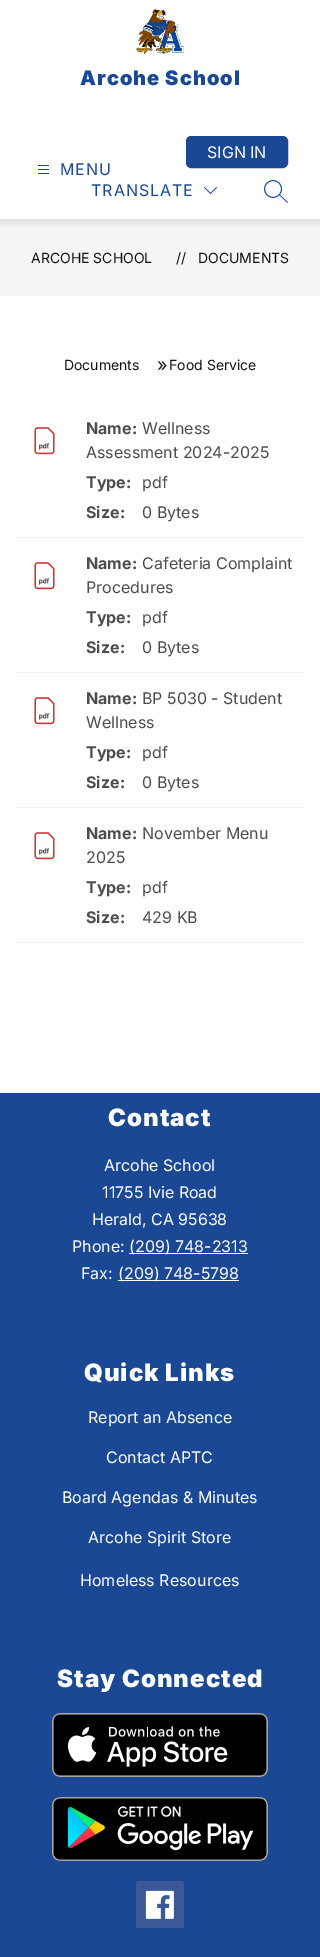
%!PS-Adobe-3.0
%%BoundingBox: 0 0 320 1957
%%LanguageLevel: 3
%%Pages: 1
%%EndComments
%%BeginProlog
/setink { 3 { 255 div 3 1 roll } repeat setrgbcolor } def
/usefont { [ exch dup neg 0 0 3 -1 roll 0 0 ] selectfont } def
/drawtext { setink usefont moveto show } def
/fillbox { setink rectfill } def
/setalpha { dup .setfillconstantalpha .setstrokeconstantalpha } def
/rrect { 5 dict begin { /r /h /w /y /x } { exch def } forall
  x r add y moveto x w add y 2 copy h add r arct x w add y h add x 1 index r arct
  x y h add x y r arct x y 2 copy exch w add exch r arct closepath end } def
/softshadow { 12 dict begin { /a /b /q /h /w /y /x } { exch def } forall gsave /was 0 def
  9 -2 -9 { dup b mul 4 div /e exch def 1 sub .425 mul 2.718 exch exp 1 add a .99 .min exch div /now exch def
    1 1 now sub 1 was sub div sub setalpha /was now def
    w h .min e 2 mul add 0 gt { x e sub y e sub w e 2 mul add h e 2 mul add
      q e add b .6 mul add w h .min 2 div e add .min 0 .max rrect fill } if } for grestore end } def
/drawimage { 5 dict begin { /h /w /y /x /name } { exch def } forall
  gsave x y translate w h scale
  w h 8 [w 0 0 h 0 0] name (r) file false 3 colorimage grestore end } def
%%EndProlog
%%BeginSetup
<< /PageSize [320 1957] /PageUsesTransparency true >> setpagedevice
%%EndSetup
%%Page: 1 1
0 .pushpdf14devicefilter
0 1957 translate 1 -1 scale
4 setmiterlimit
0 0 320 1957 255 255 255 fillbox
0 219 320 77 245 245 245 fillbox
gsave
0 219 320 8 rectclip
0 0 0 setink
0 4 320 219 0 5 0.1 softshadow
grestore
(assets/img1.rgb) 136 9 48 45 drawimage
/Inter-Black 20 usefont
26 72 148 setink
80 85 moveto 1 0 (Arcohe School) ashow
(assets/img2.rgb) 38 165 11 9 drawimage
/Inter-Regular 16 usefont
60 175 moveto 1 0 (MENU) ashow
186.5 136.5 101 31 4.5 rrect gsave fill grestore
stroke
(SIGN IN) 207 158 /Inter-Regular 16 255 255 255 drawtext
26 72 148 setink
91 196 moveto 1 0 (TRANSLATE) ashow
(assets/img3.rgb) 204 187 13 7 drawimage
(assets/img4.rgb) 264 180 24 23 drawimage
(ARCOHE SCHOOL) 31 263 /Inter-Regular 14 17 17 17 drawtext
(//) 176 263 /Inter-Regular 14 17 17 17 drawtext
(DOCUMENTS) 198 263 /Inter-Regular 14 17 17 17 drawtext
(Documents) 64 370 /Inter-Regular 14 17 17 17 drawtext
(») 157 371 /Inter-Regular 18 17 17 17 drawtext
(Food Service) 169 370 /Inter-Regular 14 17 17 17 drawtext
16 537 288 1 240 240 240 fillbox
(assets/img5.rgb) 34 427 21 28 drawimage
(Name:) 86 434 /Inter-Bold 16 76 76 76 drawtext
(Wellness) 142 434 /Inter-Regular 16 76 76 76 drawtext
(Assessment 2024-2025) 86 458 /Inter-Regular 16 76 76 76 drawtext
(Type:) 86 488 /Inter-Bold 16 76 76 76 drawtext
(pdf) 142 488 /Inter-Regular 16 76 76 76 drawtext
(Size:) 86 518 /Inter-Bold 16 76 76 76 drawtext
(0 Bytes) 142 518 /Inter-Regular 16 76 76 76 drawtext
16 672 288 1 240 240 240 fillbox
(assets/img5.rgb) 34 562 21 28 drawimage
(Name:) 86 569 /Inter-Bold 16 76 76 76 drawtext
(Cafeteria Complaint) 142 569 /Inter-Regular 16 76 76 76 drawtext
(Procedures) 86 593 /Inter-Regular 16 76 76 76 drawtext
(Type:) 86 623 /Inter-Bold 16 76 76 76 drawtext
(pdf) 142 623 /Inter-Regular 16 76 76 76 drawtext
(Size:) 86 653 /Inter-Bold 16 76 76 76 drawtext
(0 Bytes) 142 653 /Inter-Regular 16 76 76 76 drawtext
16 807 288 1 240 240 240 fillbox
(assets/img5.rgb) 34 697 21 28 drawimage
(Name:) 86 704 /Inter-Bold 16 76 76 76 drawtext
(BP 5030 - Student) 142 704 /Inter-Regular 16 76 76 76 drawtext
(Wellness) 86 728 /Inter-Regular 16 76 76 76 drawtext
(Type:) 86 758 /Inter-Bold 16 76 76 76 drawtext
(pdf) 142 758 /Inter-Regular 16 76 76 76 drawtext
(Size:) 86 788 /Inter-Bold 16 76 76 76 drawtext
(0 Bytes) 142 788 /Inter-Regular 16 76 76 76 drawtext
16 942 288 1 240 240 240 fillbox
(assets/img5.rgb) 34 832 21 28 drawimage
(Name:) 86 839 /Inter-Bold 16 76 76 76 drawtext
(November Menu) 142 839 /Inter-Regular 16 76 76 76 drawtext
(2025) 86 863 /Inter-Regular 16 76 76 76 drawtext
(Type:) 86 893 /Inter-Bold 16 76 76 76 drawtext
(pdf) 142 893 /Inter-Regular 16 76 76 76 drawtext
(Size:) 86 923 /Inter-Bold 16 76 76 76 drawtext
(429 KB) 142 923 /Inter-Regular 16 76 76 76 drawtext
0 1093 320 864 26 72 148 fillbox
/Inter-Black 24 usefont
255 255 255 setink
108 1126 moveto 1 0 (Contact) ashow
(Arcohe School) 104 1171 /Inter-Regular 16 255 255 255 drawtext
(11755 Ivie Road) 102 1198 /Inter-Regular 16 255 255 255 drawtext
(Herald, CA 95638) 92 1225 /Inter-Regular 16 255 255 255 drawtext
(Phone:) 72 1252 /Inter-Regular 16 255 255 255 drawtext
129 1253 119 1 255 255 255 fillbox
(\(209\) 748-2313) 129 1252 /Inter-Regular 16 255 255 255 drawtext
(Fax:) 81 1279 /Inter-Regular 16 255 255 255 drawtext
118 1280 121 1 255 255 255 fillbox
(\(209\) 748-5798) 118 1279 /Inter-Regular 16 255 255 255 drawtext
/Inter-Black 24 usefont
84 1381 moveto 1 0 (Quick Links) ashow
(Report an Absence) 88 1423 /Inter-Regular 16 255 255 255 drawtext
(Contact APTC) 106 1463 /Inter-Regular 16 255 255 255 drawtext
(Board Agendas & Minutes) 62 1503 /Inter-Regular 16 255 255 255 drawtext
(Arcohe Spirit Store) 88 1543 /Inter-Regular 16 255 255 255 drawtext
(Homeless Resources) 80 1586 /Inter-Regular 16 255 255 255 drawtext
/Inter-Black 24 usefont
57 1687 moveto 1 0 (Stay Connected) ashow
(assets/img6.rgb) 52 1713 216 64 drawimage
(assets/img7.rgb) 52 1797 216 64 drawimage
(assets/img8.rgb) 136 1881 48 47 drawimage
.poppdf14devicefilter showpage
%%EOF
